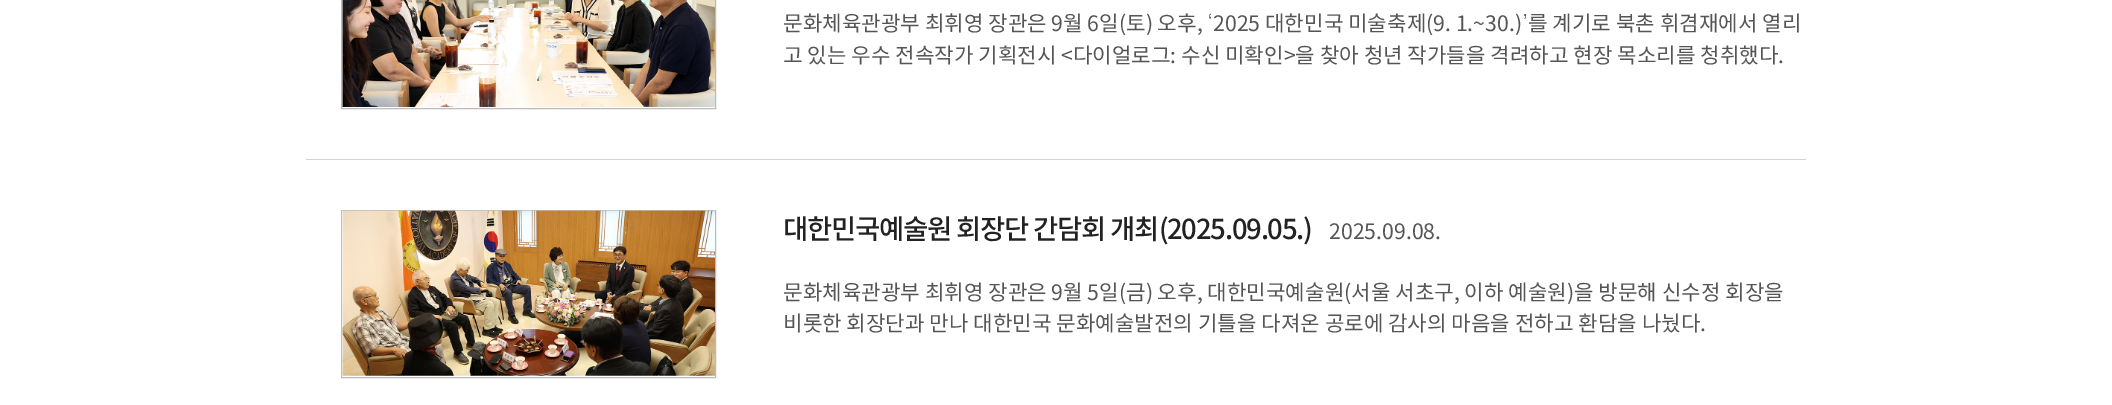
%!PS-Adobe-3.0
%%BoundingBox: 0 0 2112 405
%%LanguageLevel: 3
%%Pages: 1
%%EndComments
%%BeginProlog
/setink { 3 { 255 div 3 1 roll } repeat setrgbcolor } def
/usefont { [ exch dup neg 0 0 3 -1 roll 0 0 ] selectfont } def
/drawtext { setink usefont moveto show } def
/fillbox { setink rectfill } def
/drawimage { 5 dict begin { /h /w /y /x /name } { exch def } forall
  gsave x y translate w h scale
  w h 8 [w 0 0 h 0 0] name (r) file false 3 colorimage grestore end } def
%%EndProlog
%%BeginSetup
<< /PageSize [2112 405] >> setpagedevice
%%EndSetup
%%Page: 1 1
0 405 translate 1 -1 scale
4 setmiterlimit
0 0 2112 405 255 255 255 fillbox
188 188 188 setink
341.5 -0.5 374 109 rectstroke
(assets/img1.rgb) 342 0 373 107 drawimage
(문화체육관광부 최휘영 장관은 9월 6일\(토\) 오후,) 783 31 /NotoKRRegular-Regular 21.25 85 85 85 drawtext
(‘) 1207 31 /Dotum-Regular 21.25 85 85 85 drawtext
(2025 대한민국 미술축제\(9. 1.~30.\)) 1213 31 /NotoKRRegular-Regular 21.25 85 85 85 drawtext
(’) 1522 31 /Dotum-Regular 21.25 85 85 85 drawtext
(를 계기로 북촌 휘겸재에서 열리) 1528 31 /NotoKRRegular-Regular 21.25 85 85 85 drawtext
(고 있는 우수 전속작가 기획전시 <다이얼로그: 수신 미확인>을 찾아 청년 작가들을 격려하고 현장 목소리를 청취했다.) 783 63 /NotoKRRegular-Regular 21.25 85 85 85 drawtext
306 159 1500 1 212 212 212 fillbox
188 188 188 setink
341.5 210.5 374 167 rectstroke
(assets/img2.rgb) 342 210 373 166 drawimage
/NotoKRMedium-Medium 27.5 usefont
34 34 34 setink
783 239 moveto -1.25 0 (대한민국예술원 회장단 간담회 개최\(2025.09.05.\)) ashow
(2025.09.08.) 1329 239 /NotoKRRegular-Regular 21.25 85 85 85 drawtext
(문화체육관광부 최휘영 장관은 9월 5일\(금\) 오후, 대한민국예술원\(서울 서초구, 이하 예술원\)을 방문해 신수정 회장을) 783 300 /NotoKRRegular-Regular 21.25 85 85 85 drawtext
(비롯한 회장단과 만나 대한민국 문화예술발전의 기틀을 다져온 공로에 감사의 마음을 전하고 환담을 나눴다.) 783 331 /NotoKRRegular-Regular 21.25 85 85 85 drawtext
showpage
%%EOF
